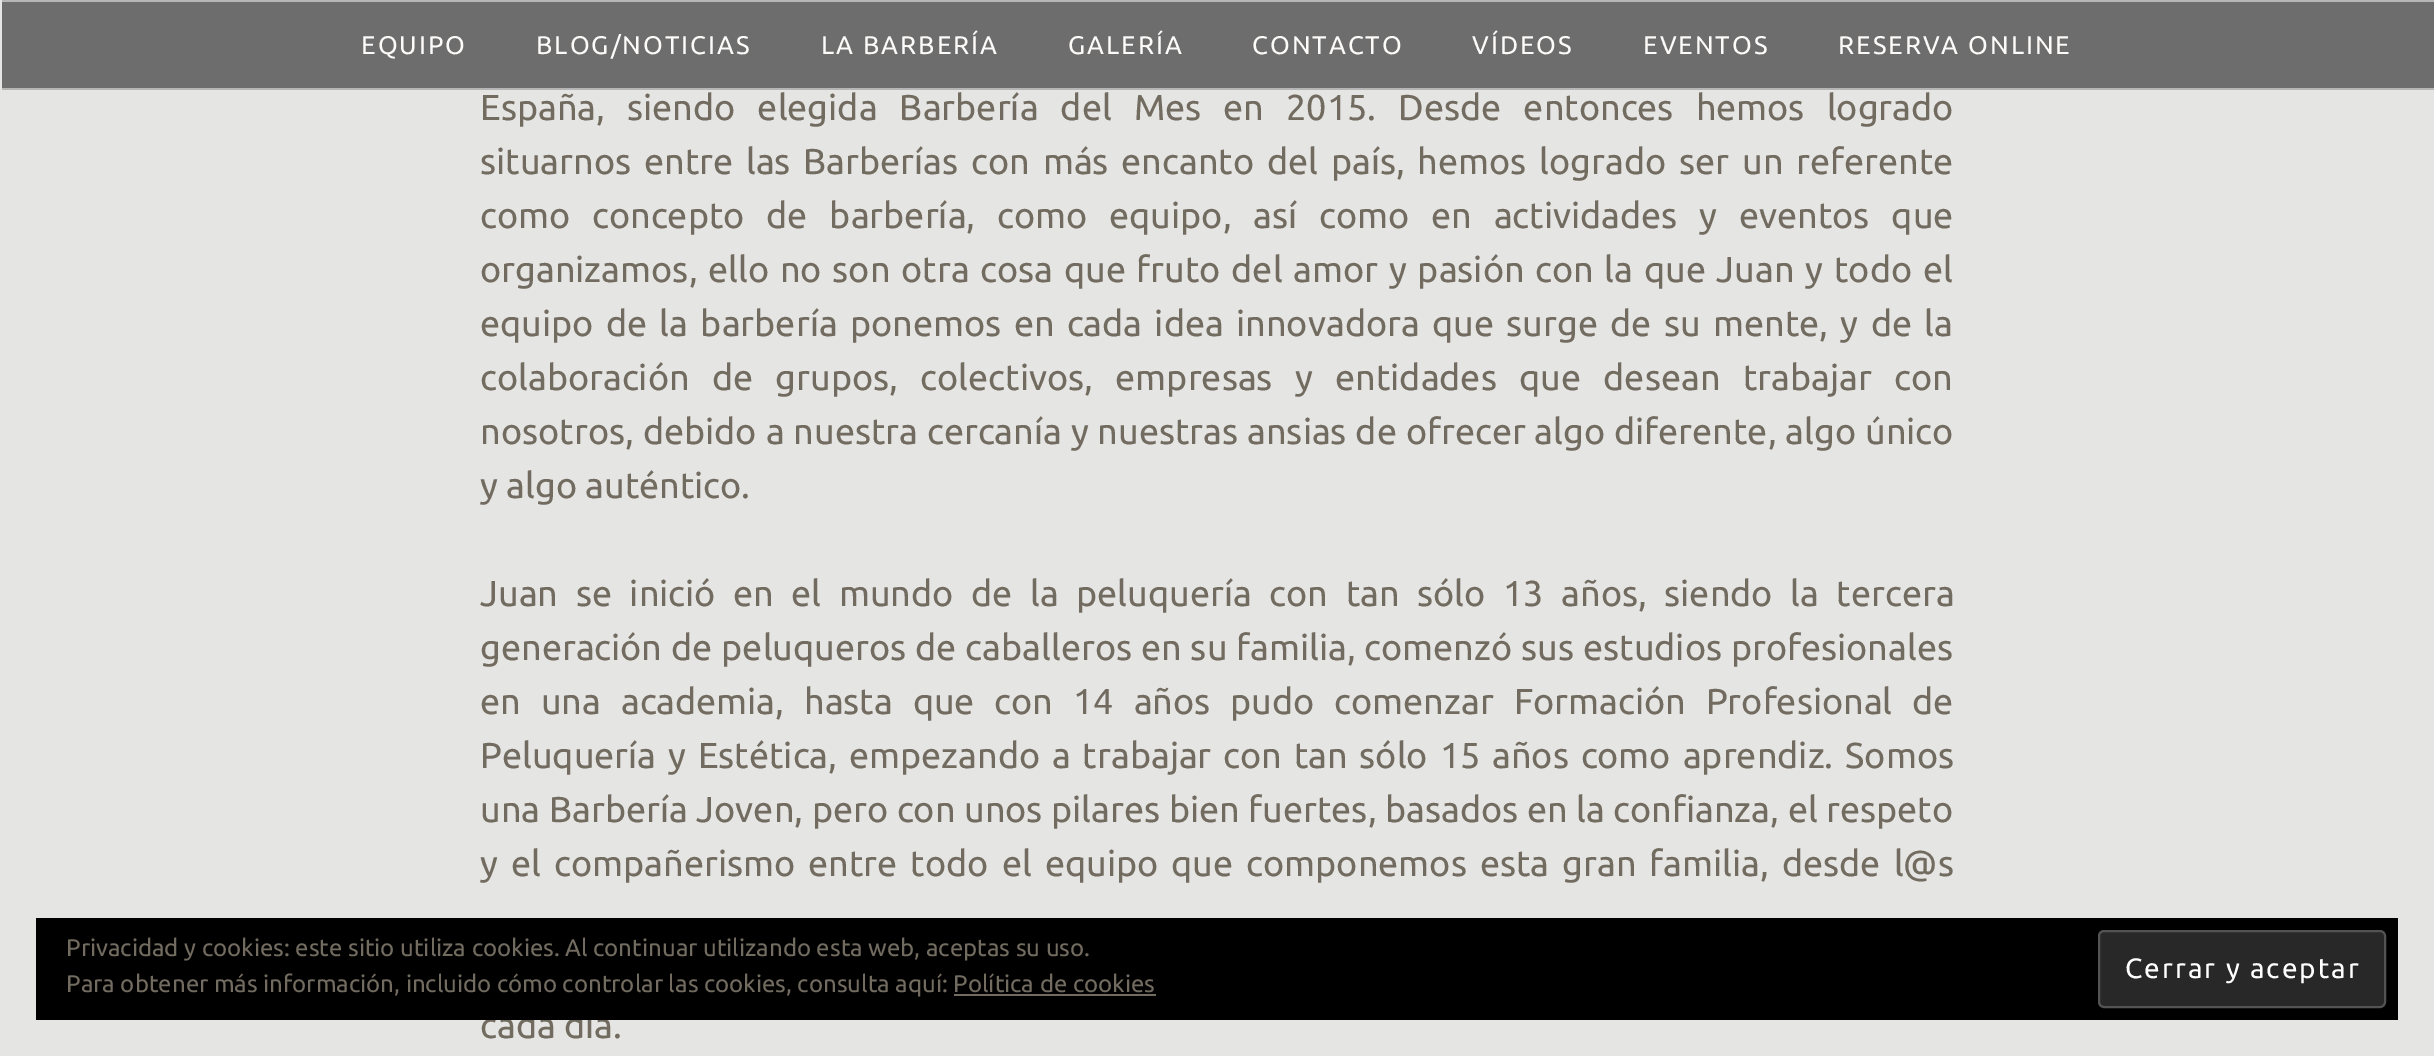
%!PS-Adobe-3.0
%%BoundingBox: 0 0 2434 1056
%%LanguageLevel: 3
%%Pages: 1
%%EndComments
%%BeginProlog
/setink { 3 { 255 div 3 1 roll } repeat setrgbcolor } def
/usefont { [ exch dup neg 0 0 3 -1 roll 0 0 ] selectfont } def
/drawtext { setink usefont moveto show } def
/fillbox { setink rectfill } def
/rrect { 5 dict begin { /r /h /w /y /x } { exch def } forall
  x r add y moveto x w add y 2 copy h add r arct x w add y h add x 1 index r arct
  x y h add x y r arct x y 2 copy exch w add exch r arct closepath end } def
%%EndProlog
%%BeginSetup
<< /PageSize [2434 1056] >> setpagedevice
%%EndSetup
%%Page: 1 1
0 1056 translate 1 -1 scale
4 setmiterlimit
0 0 2434 1056 229 229 227 fillbox
2 2 2432 86 109 109 109 fillbox
2 0 2432 2 182 182 182 fillbox
2 88 2432 2 182 182 182 fillbox
/Ubuntu-Regular 25.5 usefont
252 251 249 setink
361 54 moveto 2 0 (EQUIPO) ashow
536 54 moveto 2 0 (BLOG/NOTICIAS) ashow
821 54 moveto 2 0 (LA BARBERÍA) ashow
1068 54 moveto 2 0 (GALERÍA) ashow
1252 54 moveto 2 0 (CONTACTO) ashow
1472 54 moveto 2 0 (VÍDEOS) ashow
1643 54 moveto 2 0 (EVENTOS) ashow
1838 54 moveto 2 0 (RESERVA ONLINE) ashow
/Ubuntu-Regular 36 usefont
114 107 96 setink
480 120 moveto 13.75 0 32 (España, siendo elegida Barbería del Mes en 2015. Desde entonces hemos logrado) widthshow
480 174 moveto 4.5 0 32 (situarnos entre las Barberías con más encanto del país, hemos logrado ser un referente) widthshow
480 228 moveto 13.5 0 32 (como concepto de barbería, como equipo, así como en actividades y eventos que) widthshow
480 282 moveto 2.4 0 32 (organizamos, ello no son otra cosa que fruto del amor y pasión con la que Juan y todo el) widthshow
480 336 moveto 4 0 32 (equipo de la barbería ponemos en cada idea innovadora que surge de su mente, y de la) widthshow
480 390 moveto 14 0 32 (colaboración de grupos, colectivos, empresas y entidades que desean trabajar con) widthshow
480 444 moveto 0.6 0 32 (nosotros, debido a nuestra cercanía y nuestras ansias de ofrecer algo diferente, algo único) widthshow
(y algo auténtico.) 480 498 /Ubuntu-Regular 36 114 107 96 drawtext
480 606 moveto 9.25 0 32 (Juan se inició en el mundo de la peluquería con tan sólo 13 años, siendo la tercera) widthshow
480 660 moveto 0.6 0 32 (generación de peluqueros de caballeros en su familia, comenzó sus estudios profesionales) widthshow
480 714 moveto 11.6 0 32 (en una academia, hasta que con 14 años pudo comenzar Formación Profesional de) widthshow
480 768 moveto 3.5 0 32 (Peluquería y Estética, empezando a trabajar con tan sólo 15 años como aprendiz. Somos) widthshow
480 822 moveto 0.25 0 32 (una Barbería Joven, pero con unos pilares bien fuertes, basados en la confianza, el respeto) widthshow
480 876 moveto 4.75 0 32 (y el compañerismo entre todo el equipo que componemos esta gran familia, desde l@s) widthshow
(cada día.) 480 1038 /Ubuntu-Regular 36 114 107 96 drawtext
36 918 2362 102 0 0 0 fillbox
(Privacidad y cookies: este sitio utiliza cookies. Al continuar utilizando esta web, aceptas su uso.) 66 956 /Ubuntu-Regular 24 114 107 96 drawtext
(Para obtener más información, incluido cómo controlar las cookies, consulta aquí: Política de cookies) 66 992 /Ubuntu-Regular 24 114 107 96 drawtext
40 40 40 setink
2099 931 286 76 5 rrect gsave fill grestore
83 83 83 setink
2 setlinewidth
stroke
/Ubuntu-Regular 28 usefont
255 255 255 setink
2125 978 moveto 2 0 (Cerrar y aceptar) ashow
954 994 202 2 114 107 96 fillbox
showpage
%%EOF
